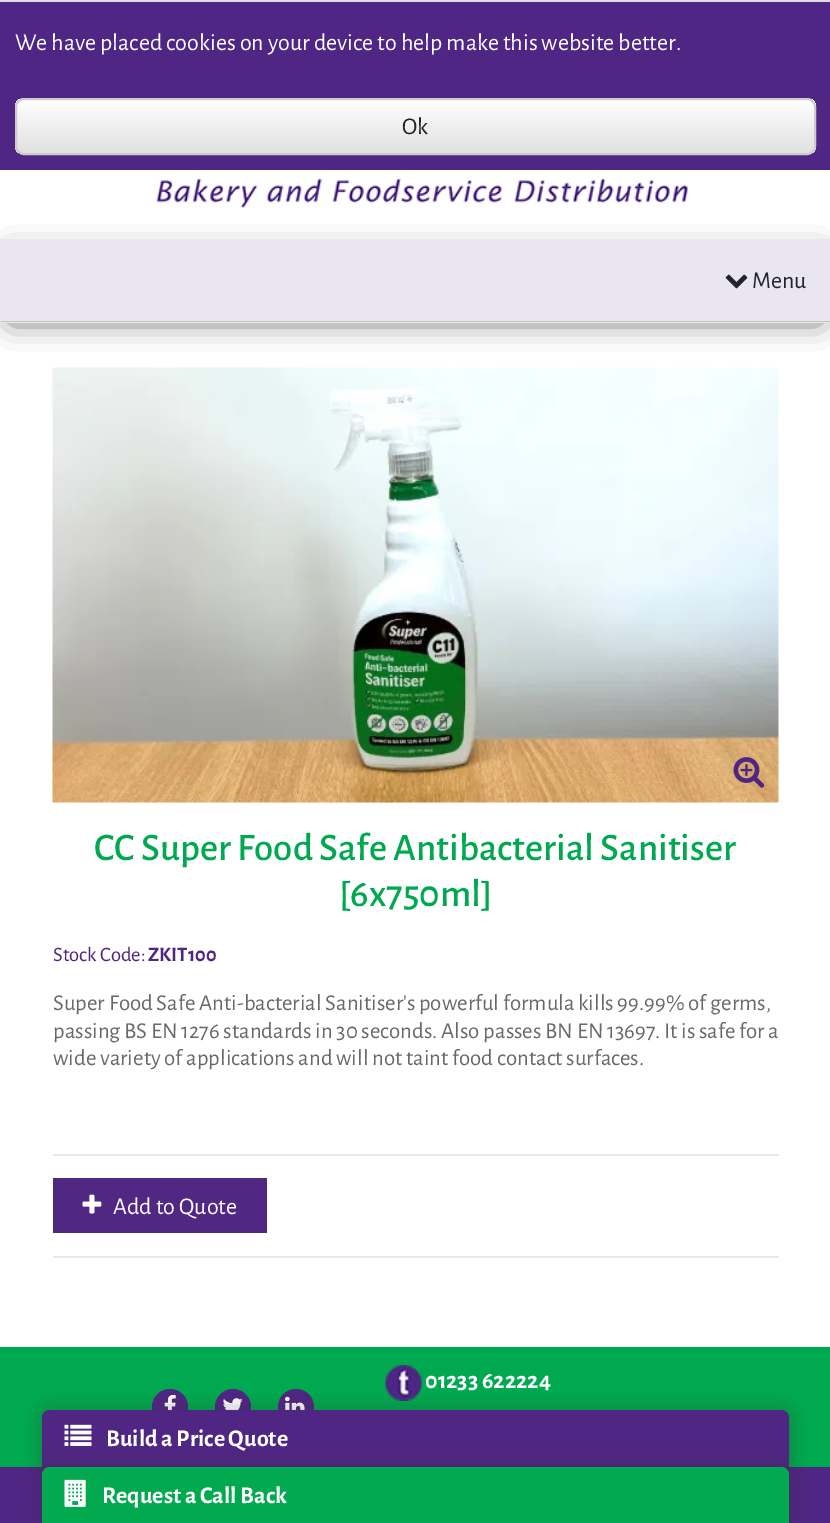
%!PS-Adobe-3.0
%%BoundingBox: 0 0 830 1523
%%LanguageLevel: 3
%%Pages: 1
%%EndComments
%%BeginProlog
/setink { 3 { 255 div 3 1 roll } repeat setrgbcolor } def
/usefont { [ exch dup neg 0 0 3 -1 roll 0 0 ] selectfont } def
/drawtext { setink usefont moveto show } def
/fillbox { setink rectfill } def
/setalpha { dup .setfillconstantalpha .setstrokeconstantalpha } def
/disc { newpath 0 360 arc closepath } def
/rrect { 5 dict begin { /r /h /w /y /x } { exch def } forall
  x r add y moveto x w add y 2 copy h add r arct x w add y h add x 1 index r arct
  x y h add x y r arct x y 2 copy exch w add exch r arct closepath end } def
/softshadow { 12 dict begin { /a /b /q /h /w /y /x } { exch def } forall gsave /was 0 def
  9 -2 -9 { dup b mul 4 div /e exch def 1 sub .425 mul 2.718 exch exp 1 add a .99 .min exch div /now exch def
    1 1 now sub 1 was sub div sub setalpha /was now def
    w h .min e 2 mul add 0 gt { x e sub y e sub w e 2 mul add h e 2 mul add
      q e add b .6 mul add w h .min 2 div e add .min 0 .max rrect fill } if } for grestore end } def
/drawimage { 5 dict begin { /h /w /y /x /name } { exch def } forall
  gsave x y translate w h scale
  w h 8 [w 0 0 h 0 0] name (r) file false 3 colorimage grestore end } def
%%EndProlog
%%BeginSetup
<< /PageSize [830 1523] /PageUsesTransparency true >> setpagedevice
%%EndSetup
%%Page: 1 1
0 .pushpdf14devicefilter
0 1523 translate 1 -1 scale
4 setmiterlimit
0 0 830 1523 255 255 255 fillbox
0 2 830 168 79 38 131 fillbox
0 0 830 2 221 221 221 fillbox
(We have placed cookies on your device to help make this website better.) 15 50 /AlegreyaSans-Regular 24 255 255 255 drawtext
gsave
15 98 801 57 9 rrect clip newpath
gsave 15 99 moveto 816 99 lineto 816 153 lineto 15 153 lineto closepath clip newpath
<< /ShadingType 2 /ColorSpace /DeviceRGB /Coords [416 99 416 153] /Extend [true true] /Function << /FunctionType 2 /Domain [0 1] /C0 [1 1 1] /C1 [0.878 0.878 0.878] /N 1 >> >> shfill grestore
grestore
204 204 204 setink
2 setlinewidth
16 99 799 55 8 rrect stroke
(Ok) 402 134 /AlegreyaSans-Regular 24 33 37 41 drawtext
(assets/img1.rgb) 52 367 727 436 drawimage
(assets/img2.rgb) 733 757 32 31 drawimage
(CC Super Food Safe Antibacterial Sanitiser) 94 860 /AlegreyaSans-Medium 39 0 169 79 drawtext
([6x750ml]) 339 906 /AlegreyaSans-Medium 39 0 169 79 drawtext
(Stock Code:) 53 961 /AlegreyaSans-Regular 20.5 79 39 131 drawtext
(ZKIT100) 148 961 /AlegreyaSans-Bold 20.5 79 39 131 drawtext
(Super Food Safe Anti-bacterial Sanitiser's powerful formula kills 99.99% of germs,) 53 1010 /AlegreyaSans-Regular 22.8 105 105 105 drawtext
(passing BS EN 1276 standards in 30 seconds. Also passes BN EN 13697. It is safe for a) 53 1038 /AlegreyaSans-Regular 22.8 105 105 105 drawtext
(wide variety of applications and will not taint food contact surfaces.) 53 1065 /AlegreyaSans-Regular 22.8 105 105 105 drawtext
53 1154 726 2 233 233 233 fillbox
53 1256 726 2 233 233 233 fillbox
53 1178 214 55 80 39 131 fillbox
(assets/img3.rgb) 82 1194 20 20 drawimage
(Add to Quote) 113 1214 /AlegreyaSans-Regular 24 255 255 255 drawtext
(assets/img4.rgb) 142 170 546 38 drawimage
51 51 51 setink
12 258 807 60 0 15 1 softshadow
0 239 830 84 233 229 241 fillbox
195 195 195 setink
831 322 moveto 0 322 lineto 2 321 lineto 830 321 lineto closepath fill
(assets/img5.rgb) 725 274 23 15 drawimage
(Menu) 752 288 /AlegreyaSans-Regular 24 33 37 41 drawtext
0 1347 830 120 0 169 79 fillbox
(assets/img6.rgb) 385 1365 37 36 drawimage
(01233 622224) 425 1388 /AlegreyaSans-Bold 24 255 255 255 drawtext
79 38 131 setink
170 1407 18 disc fill
(assets/img7.rgb) 164 1395 12 15 drawimage
233 1407 18 disc fill
(assets/img8.rgb) 223 1398 20 12 drawimage
296 1407 18 disc fill
(assets/img9.rgb) 285 1396 20 14 drawimage
0 1467 830 56 79 38 131 fillbox
51 51 51 setink
50 1418 732 42 0 11 1 softshadow
79 38 131 setink
50 1410 moveto 781 1410 lineto 785.5 1410 789 1413.5 789 1418 curveto 789 1467 lineto 42 1467 lineto 42 1418 lineto 42 1413.5 45.5 1410 50 1410 curveto closepath fill
51 51 51 setink
50 1475 732 42 0 11 1 softshadow
(assets/img10.rgb) 64 1424 28 22 drawimage
(Build a Price Quote) 106 1446 /AlegreyaSans-Bold 24 255 255 255 drawtext
2 169 79 setink
50 1467 moveto 781 1467 lineto 785.5 1467 789 1470.5 789 1475 curveto 789 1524 lineto 42 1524 lineto 42 1475 lineto 42 1470.5 45.5 1467 50 1467 curveto closepath fill
(assets/img11.rgb) 64 1479 22 28 drawimage
(Request a Call Back) 102 1503 /AlegreyaSans-Bold 24 255 255 255 drawtext
.poppdf14devicefilter showpage
%%EOF
